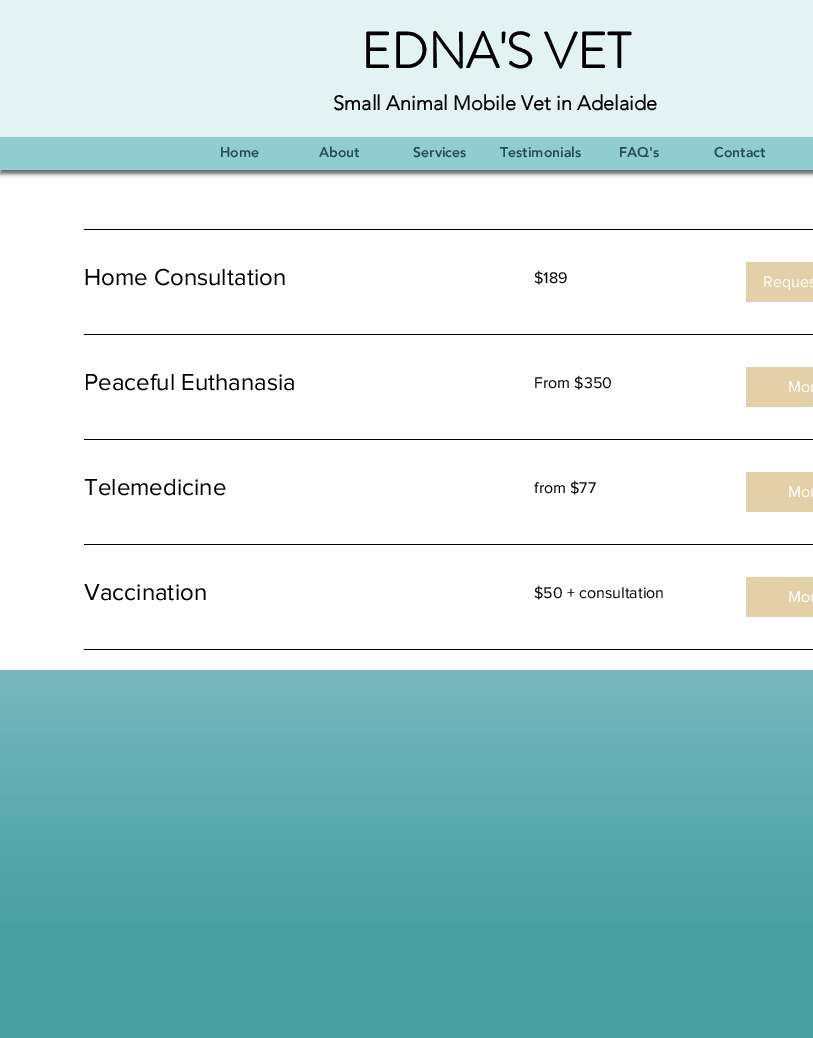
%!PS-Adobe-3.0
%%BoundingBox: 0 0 813 1038
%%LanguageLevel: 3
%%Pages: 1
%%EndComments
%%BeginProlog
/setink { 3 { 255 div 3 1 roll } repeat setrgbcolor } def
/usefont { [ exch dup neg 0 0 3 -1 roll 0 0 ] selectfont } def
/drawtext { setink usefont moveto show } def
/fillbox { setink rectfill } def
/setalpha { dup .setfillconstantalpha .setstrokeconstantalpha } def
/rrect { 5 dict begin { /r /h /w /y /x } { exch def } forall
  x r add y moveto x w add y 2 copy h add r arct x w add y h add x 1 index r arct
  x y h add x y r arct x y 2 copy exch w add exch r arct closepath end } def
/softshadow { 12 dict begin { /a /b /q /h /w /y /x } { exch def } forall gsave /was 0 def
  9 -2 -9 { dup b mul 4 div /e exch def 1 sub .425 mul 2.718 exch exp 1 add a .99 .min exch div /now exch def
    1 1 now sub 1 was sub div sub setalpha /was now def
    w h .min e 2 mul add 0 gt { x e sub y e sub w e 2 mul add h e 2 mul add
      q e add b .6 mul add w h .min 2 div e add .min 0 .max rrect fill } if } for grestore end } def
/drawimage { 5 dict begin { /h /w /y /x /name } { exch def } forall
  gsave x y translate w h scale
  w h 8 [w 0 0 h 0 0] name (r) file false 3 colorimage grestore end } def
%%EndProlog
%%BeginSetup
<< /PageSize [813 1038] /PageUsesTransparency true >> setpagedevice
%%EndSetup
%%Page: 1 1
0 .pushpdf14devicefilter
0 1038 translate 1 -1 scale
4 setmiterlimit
0 0 813 1038 255 255 255 fillbox
0 0 0 setink
0 4 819 170 0 2 0.6 softshadow
0 0 813 137 227 242 243 fillbox
(EDNA'S VET) 361 68 /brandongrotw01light-Bold 50 0 0 0 drawtext
(Small Animal Mobile Vet in Adelaide) 333 110 /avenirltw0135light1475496-Bold 20 0 0 0 drawtext
0 137 813 33 145 204 208 fillbox
(Home) 220 157 /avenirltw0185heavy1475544-Black 14 35 79 82 drawtext
(About) 319 157 /avenirltw0185heavy1475544-Black 14 35 79 82 drawtext
(Services) 413 157 /avenirltw0185heavy1475544-Black 14 35 79 82 drawtext
(Testimonials) 500 157 /avenirltw0185heavy1475544-Black 14 35 79 82 drawtext
(FAQ's) 619 157 /avenirltw0185heavy1475544-Black 14 35 79 82 drawtext
(Contact) 714 157 /avenirltw0185heavy1475544-Black 14 35 79 82 drawtext
84 229 729 1 0 0 0 fillbox
(Home Consultation) 84 285 /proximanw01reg-Regular 24 0 0 0 drawtext
($189) 534 283 /proximanw01reg-Regular 16 0 0 0 drawtext
746 262 67 40 227 208 168 fillbox
(Reques) 763 287 /proximanw01reg-Regular 16 255 255 255 drawtext
84 334 729 1 0 0 0 fillbox
(Peaceful Euthanasia) 84 390 /proximanw01reg-Regular 24 0 0 0 drawtext
(From $350) 534 388 /proximanw01reg-Regular 16 0 0 0 drawtext
746 367 67 40 227 208 168 fillbox
(Mor) 788 392 /proximanw01reg-Regular 16 255 255 255 drawtext
84 439 729 1 0 0 0 fillbox
(Telemedicine) 84 495 /proximanw01reg-Regular 24 0 0 0 drawtext
(from $77) 534 493 /proximanw01reg-Regular 16 0 0 0 drawtext
746 472 67 40 227 208 168 fillbox
(Mor) 788 497 /proximanw01reg-Regular 16 255 255 255 drawtext
84 544 729 1 0 0 0 fillbox
(Vaccination) 84 600 /proximanw01reg-Regular 24 0 0 0 drawtext
($50 + consultation) 534 598 /proximanw01reg-Regular 16 0 0 0 drawtext
746 577 67 40 227 208 168 fillbox
(Mor) 788 602 /proximanw01reg-Regular 16 255 255 255 drawtext
84 649 729 1 0 0 0 fillbox
0 670 813 368 71 159 164 fillbox
(assets/img1.rgb) 0 670 813 254 drawimage
.poppdf14devicefilter showpage
%%EOF
